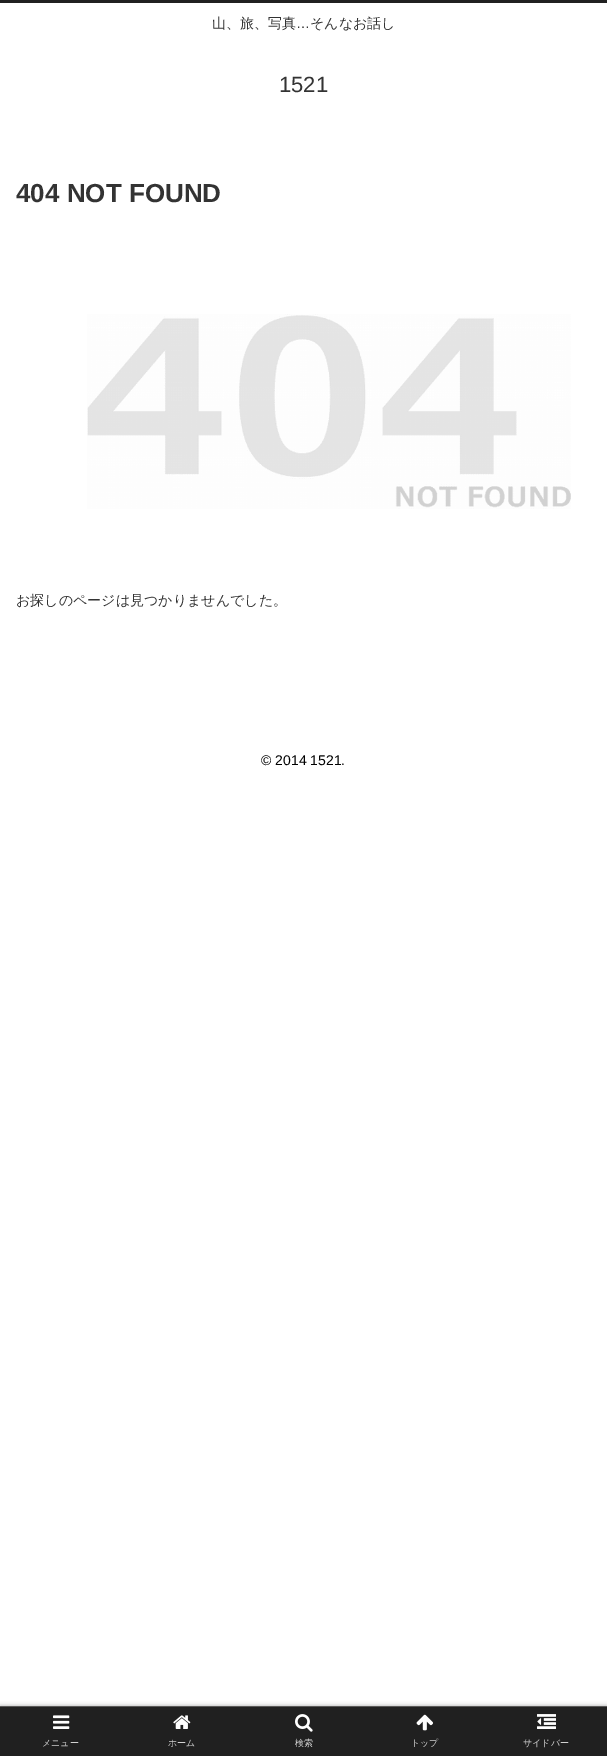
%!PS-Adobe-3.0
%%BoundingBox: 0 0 607 1756
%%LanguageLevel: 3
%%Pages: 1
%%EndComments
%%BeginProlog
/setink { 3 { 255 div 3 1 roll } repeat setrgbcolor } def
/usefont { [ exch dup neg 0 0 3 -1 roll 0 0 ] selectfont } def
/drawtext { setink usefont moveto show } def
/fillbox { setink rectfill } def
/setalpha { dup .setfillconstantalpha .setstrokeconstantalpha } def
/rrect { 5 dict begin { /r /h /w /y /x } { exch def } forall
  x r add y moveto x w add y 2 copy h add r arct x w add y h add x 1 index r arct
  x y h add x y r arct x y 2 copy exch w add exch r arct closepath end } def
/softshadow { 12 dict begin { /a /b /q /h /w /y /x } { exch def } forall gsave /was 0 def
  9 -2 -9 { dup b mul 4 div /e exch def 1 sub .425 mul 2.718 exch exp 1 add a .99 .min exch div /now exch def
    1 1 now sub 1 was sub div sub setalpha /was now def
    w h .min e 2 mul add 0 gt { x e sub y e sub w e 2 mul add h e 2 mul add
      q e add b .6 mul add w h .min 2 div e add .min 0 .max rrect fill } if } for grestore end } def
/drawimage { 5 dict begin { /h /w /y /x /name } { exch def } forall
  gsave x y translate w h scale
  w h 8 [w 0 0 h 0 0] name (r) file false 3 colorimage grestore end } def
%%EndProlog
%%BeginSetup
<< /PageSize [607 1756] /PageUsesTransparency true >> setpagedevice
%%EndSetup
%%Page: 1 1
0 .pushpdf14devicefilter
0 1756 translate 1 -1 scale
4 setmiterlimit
0 0 607 1756 255 255 255 fillbox
0 0 607 3 32 32 32 fillbox
(山、旅、写真) 212 28 /WenQuanYiZenHei-Medium 14 51 51 51 drawtext
(…) 296 28 /LiberationSans-Regular 14 51 51 51 drawtext
(そんなお話し) 310 28 /WenQuanYiZenHei-Medium 14 51 51 51 drawtext
(1521) 279 92 /LiberationSans-Regular 22 51 51 51 drawtext
(404 NOT FOUND) 16 202 /LiberationSans-Bold 26 51 51 51 drawtext
(assets/img1.rgb) 87 314 484 195 drawimage
(お探しのページは見つかりませんでした。) 16 605 /WenQuanYiZenHei-Medium 14 51 51 51 drawtext
(© 2014 1521.) 261 765 /LiberationSans-Regular 14 0 0 0 drawtext
169 169 169 setink
0 1706 607 50 0 2.5 1 softshadow
0 1707 607 49 32 32 32 fillbox
0 1706 607 1 89 88 87 fillbox
(assets/img2.rgb) 53 1715 17 14 drawimage
(メニュー) 42 1746 /WenQuanYiZenHei-Medium 9 210 210 210 drawtext
(assets/img3.rgb) 173 1715 18 14 drawimage
(ホーム) 168 1746 /WenQuanYiZenHei-Medium 9 210 210 210 drawtext
(assets/img4.rgb) 295 1714 18 18 drawimage
(検索) 295 1746 /WenQuanYiZenHei-Medium 9 210 210 210 drawtext
(assets/img5.rgb) 416 1714 17 17 drawimage
(トップ) 411 1746 /WenQuanYiZenHei-Medium 9 210 210 210 drawtext
(assets/img6.rgb) 537 1714 19 15 drawimage
(サイドバー) 523 1746 /WenQuanYiZenHei-Medium 9 210 210 210 drawtext
.poppdf14devicefilter showpage
%%EOF
